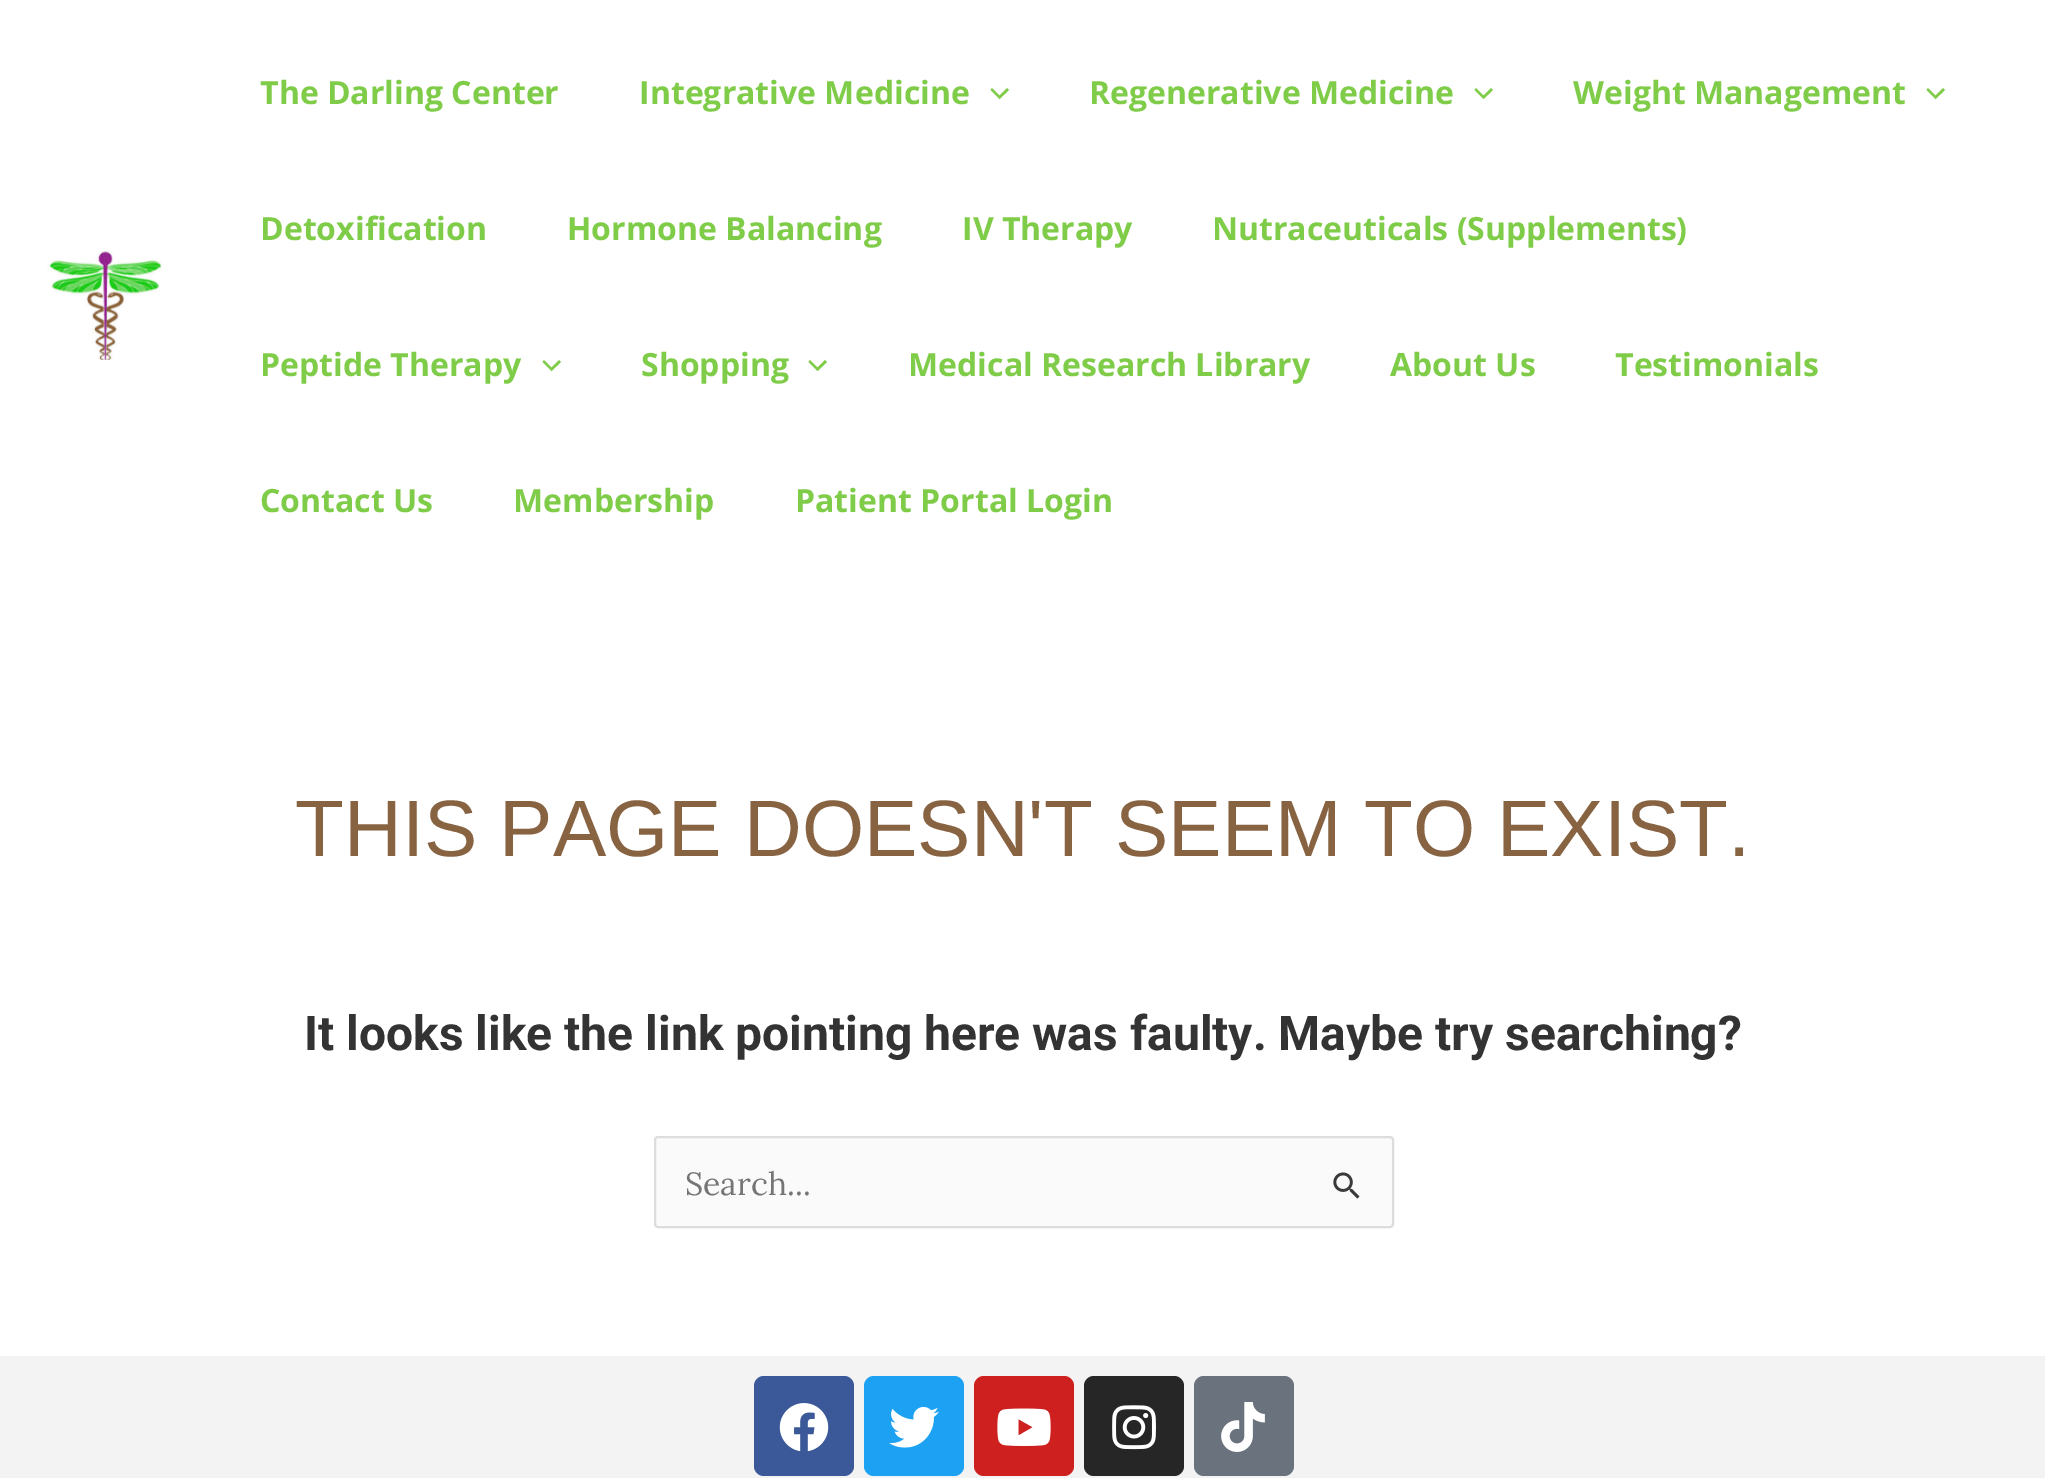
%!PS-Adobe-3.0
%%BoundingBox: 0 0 2045 1478
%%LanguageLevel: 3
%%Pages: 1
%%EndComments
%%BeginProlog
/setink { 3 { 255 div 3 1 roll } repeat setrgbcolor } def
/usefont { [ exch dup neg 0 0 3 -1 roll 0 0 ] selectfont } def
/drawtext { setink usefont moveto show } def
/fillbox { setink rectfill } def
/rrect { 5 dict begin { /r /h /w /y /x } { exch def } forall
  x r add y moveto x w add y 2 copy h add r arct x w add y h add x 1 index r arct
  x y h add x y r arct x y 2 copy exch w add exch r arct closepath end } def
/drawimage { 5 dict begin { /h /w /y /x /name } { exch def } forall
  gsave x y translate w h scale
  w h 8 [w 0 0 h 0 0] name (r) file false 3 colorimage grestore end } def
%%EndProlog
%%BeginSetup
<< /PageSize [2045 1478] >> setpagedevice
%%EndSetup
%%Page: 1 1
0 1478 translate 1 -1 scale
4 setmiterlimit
0 0 2045 1478 255 255 255 fillbox
(assets/img1.rgb) 47 250 115 110 drawimage
(The Darling Center) 260 104 /OpenSans-Bold 32 127 204 72 drawtext
(Integrative Medicine) 639 104 /OpenSans-Bold 32 127 204 72 drawtext
990.5 90 moveto 999.5 99 lineto 1009 90 lineto 1007 88 lineto 999.5 95.5 lineto 992 88 lineto closepath fill
(Regenerative Medicine) 1089 104 /OpenSans-Bold 32 127 204 72 drawtext
1474.5 90 moveto 1483.5 99 lineto 1493 90 lineto 1491 88 lineto 1483.5 95.5 lineto 1476 88 lineto closepath fill
(Weight Management) 1573 104 /OpenSans-Bold 32 127 204 72 drawtext
1926.5 90 moveto 1935.5 99 lineto 1945 90 lineto 1943 88 lineto 1935.5 95.5 lineto 1928 88 lineto closepath fill
(Detoxification) 260 240 /OpenSans-Bold 32 127 204 72 drawtext
(Hormone Balancing) 567 240 /OpenSans-Bold 32 127 204 72 drawtext
(IV Therapy) 962 240 /OpenSans-Bold 32 127 204 72 drawtext
(Nutraceuticals \(Supplements\)) 1212 240 /OpenSans-Bold 32 127 204 72 drawtext
(Peptide Therapy) 260 376 /OpenSans-Bold 32 127 204 72 drawtext
542.5 362 moveto 551.5 371 lineto 561 362 lineto 559 360 lineto 551.5 367.5 lineto 544 360 lineto closepath fill
(Shopping) 641 376 /OpenSans-Bold 32 127 204 72 drawtext
808.5 362 moveto 817.5 371 lineto 827 362 lineto 825 360 lineto 817.5 367.5 lineto 810 360 lineto closepath fill
(Medical Research Library) 908 376 /OpenSans-Bold 32 127 204 72 drawtext
(About Us) 1390 376 /OpenSans-Bold 32 127 204 72 drawtext
(Testimonials) 1615 376 /OpenSans-Bold 32 127 204 72 drawtext
(Contact Us) 260 512 /OpenSans-Bold 32 127 204 72 drawtext
(Membership) 513 512 /OpenSans-Bold 32 127 204 72 drawtext
(Patient Portal Login) 795 512 /OpenSans-Bold 32 127 204 72 drawtext
(THIS PAGE DOESN'T SEEM TO EXIST.) 295 856 /LiberationSans-Regular 80 136 99 66 drawtext
(It looks like the link pointing here was faulty. Maybe try searching?) 304 1050 /Roboto-Bold 48 51 51 51 drawtext
250 250 250 setink
655 1137 738 90 3 rrect gsave fill grestore
221 221 221 setink
2 setlinewidth
stroke
(Search...) 685 1195 /Lora-Regular 32 117 117 117 drawtext
(assets/img2.rgb) 1333 1172 27 27 drawimage
0 1356 2045 122 243 243 243 fillbox
59 89 152 setink
754 1376 100 100 10 rrect fill
(assets/img3.rgb) 779 1403 50 49 drawimage
29 161 242 setink
864 1376 100 100 10 rrect fill
(assets/img4.rgb) 889 1406 50 42 drawimage
205 32 31 setink
974 1376 100 100 10 rrect fill
(assets/img5.rgb) 997 1408 54 38 drawimage
38 38 38 setink
1084 1376 100 100 10 rrect fill
(assets/img6.rgb) 1112 1405 44 45 drawimage
105 114 125 setink
1194 1376 100 100 10 rrect fill
(assets/img7.rgb) 1221 1402 44 50 drawimage
showpage
%%EOF
